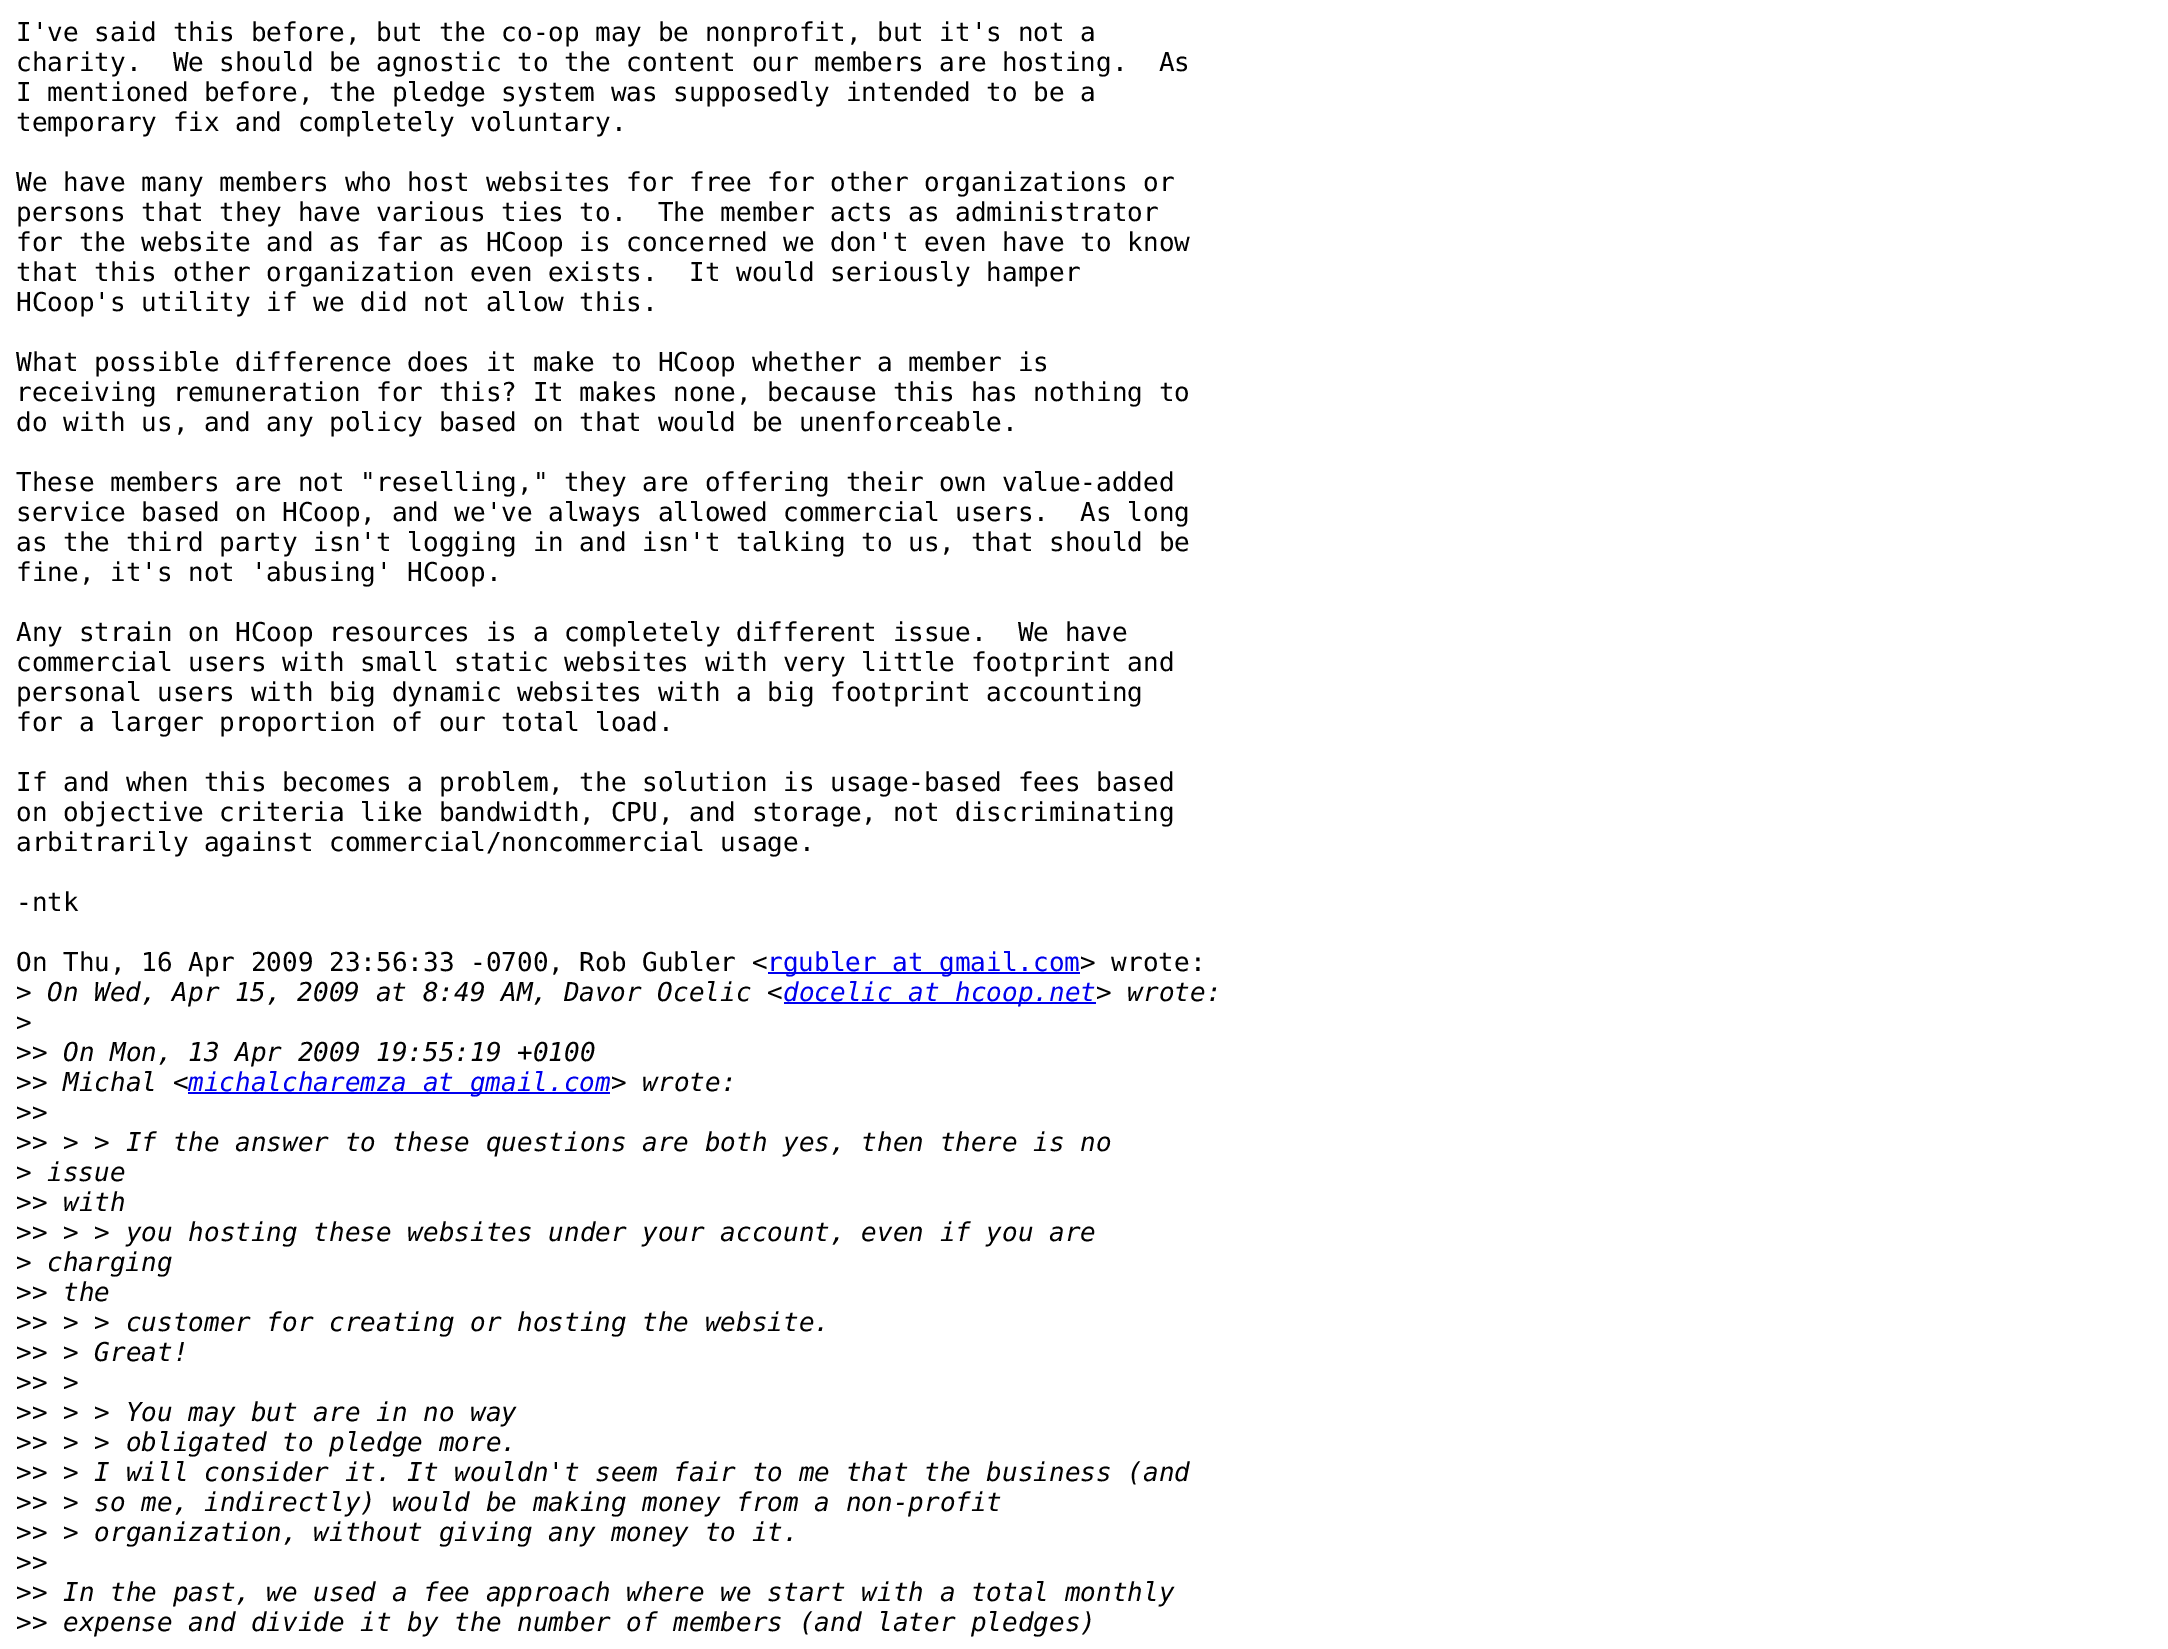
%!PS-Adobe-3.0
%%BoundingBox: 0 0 2168 1649
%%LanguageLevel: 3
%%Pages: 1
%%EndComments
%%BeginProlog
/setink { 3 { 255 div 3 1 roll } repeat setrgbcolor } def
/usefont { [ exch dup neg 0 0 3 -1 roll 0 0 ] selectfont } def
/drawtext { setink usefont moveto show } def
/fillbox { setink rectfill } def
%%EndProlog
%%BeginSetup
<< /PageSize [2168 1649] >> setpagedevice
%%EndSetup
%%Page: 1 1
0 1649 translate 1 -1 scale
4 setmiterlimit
0 0 2168 1649 255 255 255 fillbox
(I've said this before, but the co-op may be nonprofit, but it's not a) 16 41 /DejaVuSansMono-Regular 26 0 0 0 drawtext
(charity.  We should be agnostic to the content our members are hosting.  As) 16 71 /DejaVuSansMono-Regular 26 0 0 0 drawtext
(I mentioned before, the pledge system was supposedly intended to be a) 16 101 /DejaVuSansMono-Regular 26 0 0 0 drawtext
(temporary fix and completely voluntary.) 16 131 /DejaVuSansMono-Regular 26 0 0 0 drawtext
(We have many members who host websites for free for other organizations or) 16 191 /DejaVuSansMono-Regular 26 0 0 0 drawtext
(persons that they have various ties to.  The member acts as administrator) 16 221 /DejaVuSansMono-Regular 26 0 0 0 drawtext
(for the website and as far as HCoop is concerned we don't even have to know) 16 251 /DejaVuSansMono-Regular 26 0 0 0 drawtext
(that this other organization even exists.  It would seriously hamper) 16 281 /DejaVuSansMono-Regular 26 0 0 0 drawtext
(HCoop's utility if we did not allow this.) 16 311 /DejaVuSansMono-Regular 26 0 0 0 drawtext
(What possible difference does it make to HCoop whether a member is) 16 371 /DejaVuSansMono-Regular 26 0 0 0 drawtext
(receiving remuneration for this? It makes none, because this has nothing to) 16 401 /DejaVuSansMono-Regular 26 0 0 0 drawtext
(do with us, and any policy based on that would be unenforceable.) 16 431 /DejaVuSansMono-Regular 26 0 0 0 drawtext
(These members are not "reselling," they are offering their own value-added) 16 491 /DejaVuSansMono-Regular 26 0 0 0 drawtext
(service based on HCoop, and we've always allowed commercial users.  As long) 16 521 /DejaVuSansMono-Regular 26 0 0 0 drawtext
(as the third party isn't logging in and isn't talking to us, that should be) 16 551 /DejaVuSansMono-Regular 26 0 0 0 drawtext
(fine, it's not 'abusing' HCoop.) 16 581 /DejaVuSansMono-Regular 26 0 0 0 drawtext
(Any strain on HCoop resources is a completely different issue.  We have) 16 641 /DejaVuSansMono-Regular 26 0 0 0 drawtext
(commercial users with small static websites with very little footprint and) 16 671 /DejaVuSansMono-Regular 26 0 0 0 drawtext
(personal users with big dynamic websites with a big footprint accounting) 16 701 /DejaVuSansMono-Regular 26 0 0 0 drawtext
(for a larger proportion of our total load.) 16 731 /DejaVuSansMono-Regular 26 0 0 0 drawtext
(If and when this becomes a problem, the solution is usage-based fees based) 16 791 /DejaVuSansMono-Regular 26 0 0 0 drawtext
(on objective criteria like bandwidth, CPU, and storage, not discriminating) 16 821 /DejaVuSansMono-Regular 26 0 0 0 drawtext
(arbitrarily against commercial/noncommercial usage.) 16 851 /DejaVuSansMono-Regular 26 0 0 0 drawtext
(-ntk) 16 911 /DejaVuSansMono-Regular 26 0 0 0 drawtext
(On Thu, 16 Apr 2009 23:56:33 -0700, Rob Gubler <) 16 971 /DejaVuSansMono-Regular 26 0 0 0 drawtext
768 972 312 2 0 0 238 fillbox
(rgubler at gmail.com) 767 971 /DejaVuSansMono-Regular 26 0 0 238 drawtext
(> wrote:) 1080 971 /DejaVuSansMono-Regular 26 0 0 0 drawtext
(>) 16 1001 /DejaVuSansMono-Regular 26 0 0 0 drawtext
(On Wed, Apr 15, 2009 at 8:49 AM, Davor Ocelic <) 47 1001 /DejaVuSansMono-Italic 26 0 0 0 drawtext
784 1002 312 2 0 0 238 fillbox
(docelic at hcoop.net) 783 1001 /DejaVuSansMono-Italic 26 0 0 238 drawtext
(> wrote:) 1096 1001 /DejaVuSansMono-Italic 26 0 0 0 drawtext
(>) 16 1031 /DejaVuSansMono-Regular 26 0 0 0 drawtext
(>>) 16 1061 /DejaVuSansMono-Regular 26 0 0 0 drawtext
(On Mon, 13 Apr 2009 19:55:19 +0100) 63 1061 /DejaVuSansMono-Italic 26 0 0 0 drawtext
(>>) 16 1091 /DejaVuSansMono-Regular 26 0 0 0 drawtext
(Michal <) 63 1091 /DejaVuSansMono-Italic 26 0 0 0 drawtext
188 1092 422 2 0 0 238 fillbox
(michalcharemza at gmail.com) 188 1091 /DejaVuSansMono-Italic 26 0 0 238 drawtext
(> wrote:) 611 1091 /DejaVuSansMono-Italic 26 0 0 0 drawtext
(>>) 16 1121 /DejaVuSansMono-Regular 26 0 0 0 drawtext
(>>) 16 1151 /DejaVuSansMono-Regular 26 0 0 0 drawtext
(> > If the answer to these questions are both yes, then there is no) 63 1151 /DejaVuSansMono-Italic 26 0 0 0 drawtext
(>) 16 1181 /DejaVuSansMono-Regular 26 0 0 0 drawtext
(issue) 47 1181 /DejaVuSansMono-Italic 26 0 0 0 drawtext
(>>) 16 1211 /DejaVuSansMono-Regular 26 0 0 0 drawtext
(with) 63 1211 /DejaVuSansMono-Italic 26 0 0 0 drawtext
(>>) 16 1241 /DejaVuSansMono-Regular 26 0 0 0 drawtext
(> > you hosting these websites under your account, even if you are) 63 1241 /DejaVuSansMono-Italic 26 0 0 0 drawtext
(>) 16 1271 /DejaVuSansMono-Regular 26 0 0 0 drawtext
(charging) 47 1271 /DejaVuSansMono-Italic 26 0 0 0 drawtext
(>>) 16 1301 /DejaVuSansMono-Regular 26 0 0 0 drawtext
(the) 63 1301 /DejaVuSansMono-Italic 26 0 0 0 drawtext
(>>) 16 1331 /DejaVuSansMono-Regular 26 0 0 0 drawtext
(> > customer for creating or hosting the website.) 63 1331 /DejaVuSansMono-Italic 26 0 0 0 drawtext
(>>) 16 1361 /DejaVuSansMono-Regular 26 0 0 0 drawtext
(> Great!) 63 1361 /DejaVuSansMono-Italic 26 0 0 0 drawtext
(>>) 16 1391 /DejaVuSansMono-Regular 26 0 0 0 drawtext
(>) 63 1391 /DejaVuSansMono-Italic 26 0 0 0 drawtext
(>>) 16 1421 /DejaVuSansMono-Regular 26 0 0 0 drawtext
(> > You may but are in no way) 63 1421 /DejaVuSansMono-Italic 26 0 0 0 drawtext
(>>) 16 1451 /DejaVuSansMono-Regular 26 0 0 0 drawtext
(> > obligated to pledge more.) 63 1451 /DejaVuSansMono-Italic 26 0 0 0 drawtext
(>>) 16 1481 /DejaVuSansMono-Regular 26 0 0 0 drawtext
(> I will consider it. It wouldn't seem fair to me that the business \(and) 63 1481 /DejaVuSansMono-Italic 26 0 0 0 drawtext
(>>) 16 1511 /DejaVuSansMono-Regular 26 0 0 0 drawtext
(> so me, indirectly\) would be making money from a non-profit) 63 1511 /DejaVuSansMono-Italic 26 0 0 0 drawtext
(>>) 16 1541 /DejaVuSansMono-Regular 26 0 0 0 drawtext
(> organization, without giving any money to it.) 63 1541 /DejaVuSansMono-Italic 26 0 0 0 drawtext
(>>) 16 1571 /DejaVuSansMono-Regular 26 0 0 0 drawtext
(>>) 16 1601 /DejaVuSansMono-Regular 26 0 0 0 drawtext
(In the past, we used a fee approach where we start with a total monthly) 63 1601 /DejaVuSansMono-Italic 26 0 0 0 drawtext
(>>) 16 1631 /DejaVuSansMono-Regular 26 0 0 0 drawtext
(expense and divide it by the number of members \(and later pledges\)) 63 1631 /DejaVuSansMono-Italic 26 0 0 0 drawtext
showpage
%%EOF
